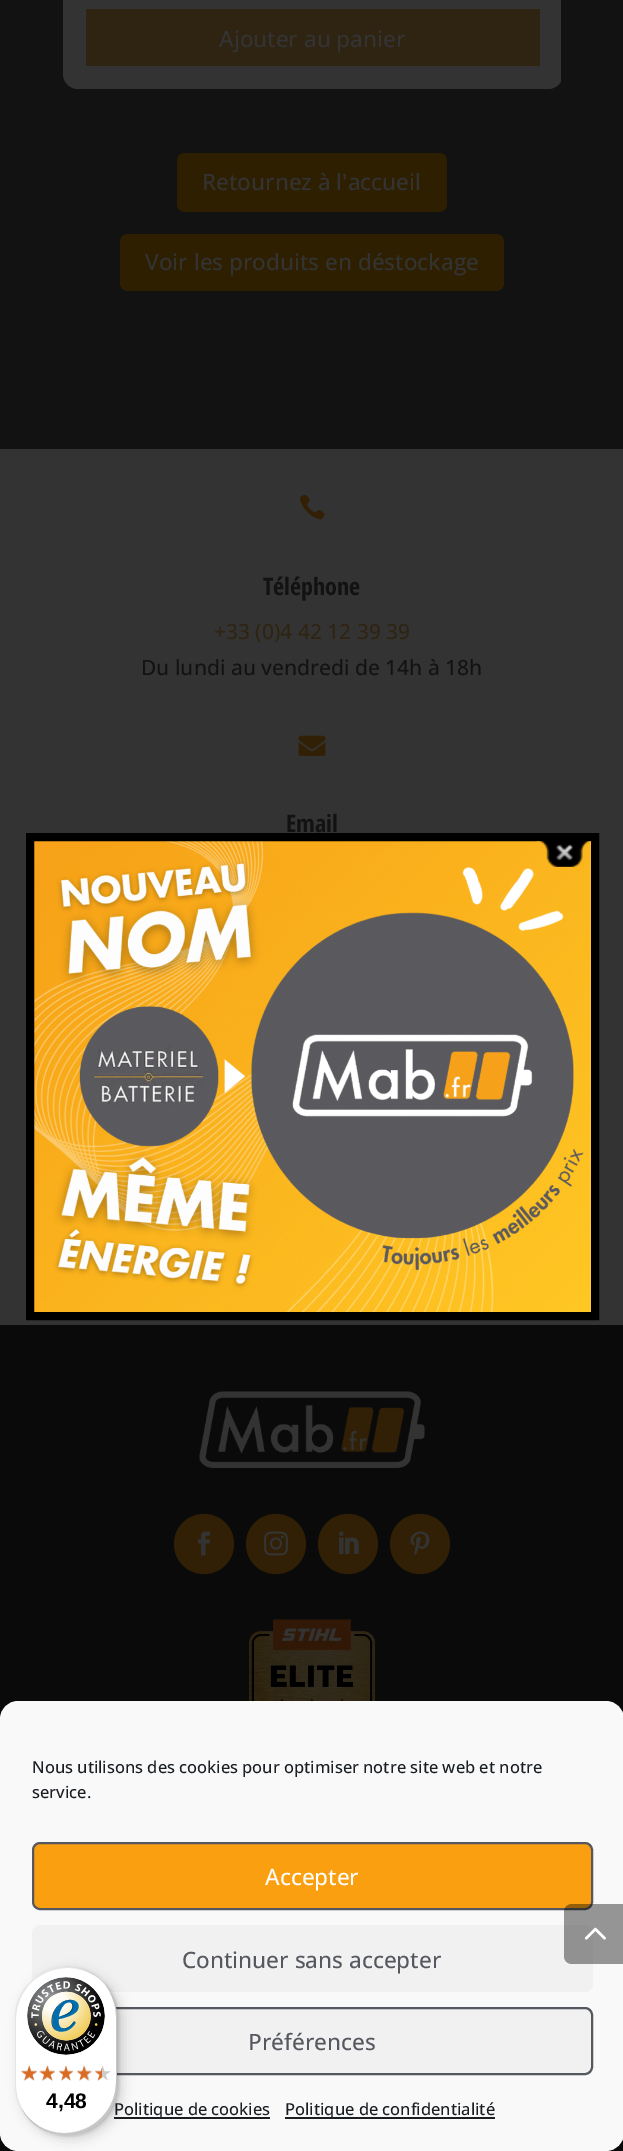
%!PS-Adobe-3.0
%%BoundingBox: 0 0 623 2151
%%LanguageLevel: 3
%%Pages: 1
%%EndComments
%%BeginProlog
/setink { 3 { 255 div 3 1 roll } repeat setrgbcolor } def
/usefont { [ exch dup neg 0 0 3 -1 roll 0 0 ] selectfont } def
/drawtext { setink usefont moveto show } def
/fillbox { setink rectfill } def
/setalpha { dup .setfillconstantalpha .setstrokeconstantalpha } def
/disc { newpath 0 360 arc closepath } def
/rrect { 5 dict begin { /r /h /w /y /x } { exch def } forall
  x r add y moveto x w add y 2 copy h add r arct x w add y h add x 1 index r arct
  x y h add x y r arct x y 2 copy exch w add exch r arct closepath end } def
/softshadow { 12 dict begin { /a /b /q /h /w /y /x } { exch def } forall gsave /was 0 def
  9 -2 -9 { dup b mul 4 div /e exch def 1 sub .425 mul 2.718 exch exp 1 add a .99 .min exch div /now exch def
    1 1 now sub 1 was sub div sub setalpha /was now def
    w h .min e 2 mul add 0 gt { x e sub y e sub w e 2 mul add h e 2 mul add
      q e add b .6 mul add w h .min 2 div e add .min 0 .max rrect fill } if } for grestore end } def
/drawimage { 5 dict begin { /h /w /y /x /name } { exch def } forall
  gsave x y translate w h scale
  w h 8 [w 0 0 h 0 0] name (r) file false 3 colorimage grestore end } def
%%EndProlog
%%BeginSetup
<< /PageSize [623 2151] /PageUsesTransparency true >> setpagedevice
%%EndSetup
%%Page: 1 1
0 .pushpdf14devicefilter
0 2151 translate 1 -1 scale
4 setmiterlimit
0 0 623 2151 51 51 51 fillbox
0 0 623 449 18 18 19 fillbox
gsave
63 0 498 89 rectclip
51 51 51 setink
63 -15 500 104 15 rrect fill
grestore
86 9 454 57 47 35 18 fillbox
(Ajouter au panier) 219 47 /OpenSans-Medium 22.5 51 51 51 drawtext
45 31 0 setink
177 153 270 59 8 rrect fill
(Retournez à l'accueil) 202 190 /OpenSans-Medium 22.5 51 51 51 drawtext
45 31 0 setink
120 234 384 57 8 rrect fill
(Voir les produits en déstockage) 145 270 /OpenSans-Medium 22.5 51 51 51 drawtext
(assets/img1.rgb) 299 494 26 26 drawimage
(Téléphone) 263 595 /OpenSansCondensed-Bold 24 18 18 19 drawtext
(+33 \(0\)4 42 12 39 39) 214 639 /OpenSans-Medium 21 47 35 18 drawtext
(Du lundi au vendredi de 14h à 18h) 141 675 /OpenSans-Medium 21 18 18 19 drawtext
(assets/img2.rgb) 298 735 28 21 drawimage
(Email) 286 832 /OpenSansCondensed-Bold 24 18 18 19 drawtext
0 1325 623 826 11 10 11 fillbox
(assets/img3.rgb) 199 1391 226 77 drawimage
49 32 5 setink
204 1544 30 disc fill
(assets/img4.rgb) 198 1531 13 25 drawimage
276 1544 30 disc fill
(assets/img5.rgb) 264 1531 24 25 drawimage
348 1544 30 disc fill
(assets/img6.rgb) 339 1531 20 23 drawimage
420 1544 30 disc fill
(assets/img7.rgb) 410 1531 20 25 drawimage
(assets/img8.rgb) 249 1619 126 82 drawimage
(assets/img9.rgb) 34 841 557 471 drawimage
0 0 0 setink
8 setlinewidth
30 837 565 479 rectstroke
(assets/img10.rgb) 537 841 54 26 drawimage
249 249 249 setink
1 1702 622 448 17 rrect gsave fill grestore
2 setlinewidth
stroke
(Nous utilisons des cookies pour optimiser notre site web et notre) 32 1773 /OpenSans-Medium 16.5 25 30 35 drawtext
(service.) 32 1798 /OpenSans-Medium 16.5 25 30 35 drawtext
249 159 16 setink
33 1843 559 66 7 rrect gsave fill grestore
85 88 94 setink
stroke
(Accepter) 265 1885 /OpenSans-Medium 22.5 255 255 255 drawtext
241 241 241 setink
32 1925 561 67 8 rrect fill
(Continuer sans accepter) 182 1968 /OpenSans-Medium 22.5 85 88 94 drawtext
241 241 241 setink
33 2008 559 66 7 rrect gsave fill grestore
85 88 94 setink
stroke
(Préférences) 248 2050 /OpenSans-Medium 22.5 85 88 94 drawtext
114 2117 156 2 25 30 35 fillbox
(Politique de cookies) 114 2115 /OpenSans-Medium 16.5 25 30 35 drawtext
285 2117 210 2 25 30 35 fillbox
(Politique de confidentialité) 285 2115 /OpenSans-Medium 16.5 25 30 35 drawtext
0.4 setalpha
0 0 0 setink
572 1904 moveto 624 1904 lineto 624 1964 lineto 572 1964 lineto 567.5 1964 564 1960.5 564 1956 curveto 564 1912 lineto 564 1907.5 567.5 1904 572 1904 curveto closepath fill
1 setalpha
(assets/img11.rgb) 584 1927 22 13 drawimage
20 1971 102 168 51 6 0.15 softshadow
17 1968 102 168 51 1.5 0.15 softshadow
255 255 255 setink
15 1967 102 168 51 rrect fill
0.1 setalpha
0 0 0 setink
68 1968 moveto 78 1968 86 1971 94 1975 curveto 86 1970 76 1967 66 1967 curveto 38 1967 15 1990 15 2018 curveto 15 2084 lineto 15 2101 23 2116 36 2125 curveto 24 2116 16 2101 16 2085 curveto 16 2019 lineto 16 1991 39 1968 68 1968 curveto closepath fill
0.2 setalpha
22 2109 moveto 30 2125 47 2135 66 2135 curveto 94 2135 117 2112 117 2084 curveto 117 2018 lineto 117 2009 115 2000 110 1993 curveto 114 2000 116 2008 116 2016 curveto 116 2082 lineto 116 2110 93 2133 64 2133 curveto 46 2133 30 2123 22 2109 curveto closepath fill
50 50 50 setink
27 2117 moveto 37 2128 51 2135 66 2135 curveto 94 2135 117 2112 117 2084 curveto 117 2018 lineto 117 2006 113 1995 106 1986 curveto 112 1995 116 2005 116 2017 curveto 116 2083 lineto 116 2111 93 2134 65 2134 curveto 50 2134 37 2128 27 2117 curveto closepath fill
0.3 setalpha
255 255 255 setink
27 2117 moveto 37 2128 51 2135 66 2135 curveto 94 2135 117 2112 117 2084 curveto 117 2018 lineto 117 2003 110 1989 99 1979 curveto 110 1989 116 2002 116 2017 curveto 116 2083 lineto 116 2111 93 2134 65 2134 curveto 50 2134 37 2128 27 2117 curveto closepath fill
1 setalpha
(assets/img12.rgb) 27 1977 78 78 drawimage
(assets/img13.rgb) 21 2066 16 14 drawimage
(assets/img14.rgb) 41 2066 14 15 drawimage
(assets/img15.rgb) 59 2066 14 14 drawimage
(assets/img16.rgb) 77 2065 16 16 drawimage
(assets/img17.rgb) 95 2066 16 14 drawimage
(assets/img18.rgb) 21 2065 16 16 drawimage
(assets/img19.rgb) 39 2065 16 16 drawimage
(assets/img20.rgb) 59 2065 14 16 drawimage
(assets/img21.rgb) 77 2065 14 16 drawimage
(assets/img22.rgb) 95 2067 7 14 drawimage
(4,48) 46 2108 /LiberationSans-Bold 21 0 0 0 drawtext
.poppdf14devicefilter showpage
%%EOF
